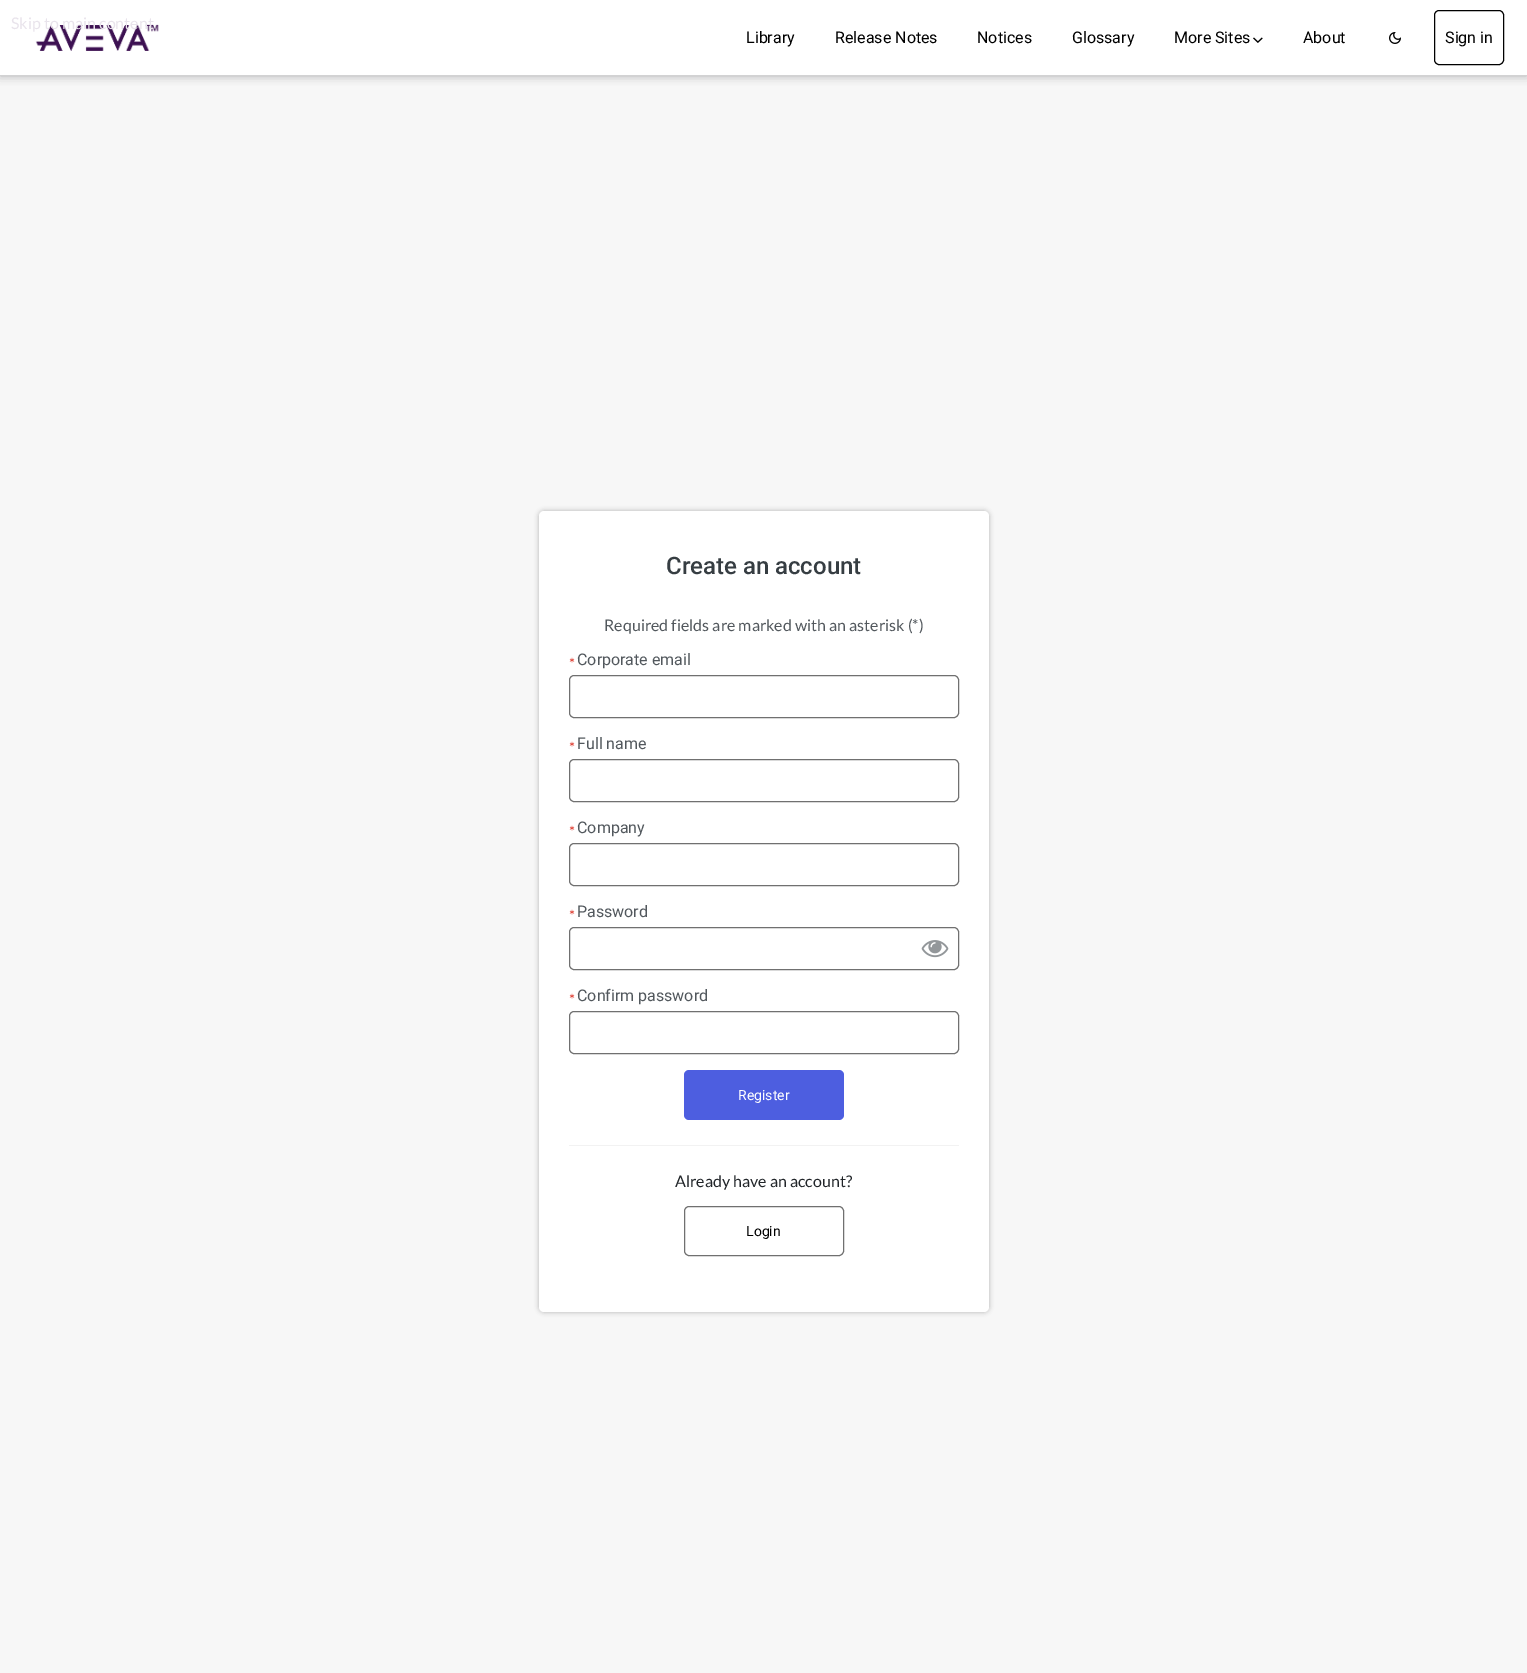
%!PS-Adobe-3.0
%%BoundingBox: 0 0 1527 1673
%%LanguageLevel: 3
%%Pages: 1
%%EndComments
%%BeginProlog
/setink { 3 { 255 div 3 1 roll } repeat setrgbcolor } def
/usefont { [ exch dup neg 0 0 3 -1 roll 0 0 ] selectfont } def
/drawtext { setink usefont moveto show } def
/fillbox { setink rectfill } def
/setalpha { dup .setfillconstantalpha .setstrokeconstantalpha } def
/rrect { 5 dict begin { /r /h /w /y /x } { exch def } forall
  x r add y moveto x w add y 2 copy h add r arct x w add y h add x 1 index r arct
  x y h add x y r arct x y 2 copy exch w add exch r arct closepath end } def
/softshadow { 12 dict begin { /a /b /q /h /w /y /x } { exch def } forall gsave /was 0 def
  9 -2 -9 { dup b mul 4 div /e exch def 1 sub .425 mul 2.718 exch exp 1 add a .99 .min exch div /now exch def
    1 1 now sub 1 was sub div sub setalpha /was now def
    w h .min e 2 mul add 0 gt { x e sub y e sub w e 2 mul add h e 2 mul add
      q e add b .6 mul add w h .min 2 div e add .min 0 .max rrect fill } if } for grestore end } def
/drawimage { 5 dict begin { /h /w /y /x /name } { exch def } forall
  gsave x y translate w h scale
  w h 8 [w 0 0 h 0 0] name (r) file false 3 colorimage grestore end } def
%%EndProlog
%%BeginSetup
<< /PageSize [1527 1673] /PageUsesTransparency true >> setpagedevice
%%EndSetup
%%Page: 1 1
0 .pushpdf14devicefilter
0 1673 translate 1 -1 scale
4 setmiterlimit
0 0 1527 1673 255 255 255 fillbox
0 75 1527 1598 247 247 247 fillbox
gsave
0 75 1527 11 rectclip
173 173 174 setink
0 1 1527 75 0 5 1 softshadow
grestore
(assets/img1.rgb) 35 24 124 27 drawimage
(Skip to main content) 11 29 /Lato-Regular 16 232 227 235 drawtext
(Library) 746 43 /Roboto-Regular 16 0 0 0 drawtext
(Release Notes) 835 43 /Roboto-Regular 16 0 0 0 drawtext
(Notices) 977 43 /Roboto-Regular 16 0 0 0 drawtext
(Glossary) 1072 43 /Roboto-Regular 16 0 0 0 drawtext
(More Sites) 1174 43 /Roboto-Regular 16 0 0 0 drawtext
(assets/img2.rgb) 1253 37 10 6 drawimage
(About) 1303 43 /Roboto-Regular 16 0 0 0 drawtext
(assets/img3.rgb) 1389 32 12 12 drawimage
1434.5 10.5 69 54 4.5 rrect stroke
(Sign in) 1445 43 /Roboto-Regular 16 0 0 0 drawtext
539 511 450 801 5 2.5 0.27 softshadow
255 255 255 setink
539 511 450 801 5 rrect fill
(Create an account) 666 574 /Roboto-Medium 24 54 61 66 drawtext
(Required fields are marked with an asterisk \(*\)) 604 631 /Lato-Regular 16 82 88 93 drawtext
(*) 569 669 /Lato-Regular 15 218 41 28 drawtext
(Corporate email) 577 665 /Roboto-Regular 16 82 88 93 drawtext
112 112 112 setink
569.5 675.5 389 42 4.5 rrect stroke
(*) 569 753 /Lato-Regular 15 218 41 28 drawtext
(Full name) 577 749 /Roboto-Regular 16 82 88 93 drawtext
112 112 112 setink
569.5 759.5 389 42 4.5 rrect stroke
(*) 569 837 /Lato-Regular 15 218 41 28 drawtext
(Company) 577 833 /Roboto-Regular 16 82 88 93 drawtext
112 112 112 setink
569.5 843.5 389 42 4.5 rrect stroke
(*) 569 921 /Lato-Regular 15 218 41 28 drawtext
(Password) 577 917 /Roboto-Regular 16 82 88 93 drawtext
112 112 112 setink
569.5 927.5 389 42 4.5 rrect stroke
(assets/img4.rgb) 921 940 28 18 drawimage
(*) 569 1005 /Lato-Regular 15 218 41 28 drawtext
(Confirm password) 577 1001 /Roboto-Regular 16 82 88 93 drawtext
112 112 112 setink
569.5 1011.5 389 42 4.5 rrect stroke
77 94 224 setink
684 1070 160 50 5 rrect fill
(Register) 738 1100 /Roboto-Regular 14 255 255 255 drawtext
569 1145 390 1 242 242 242 fillbox
(Already have an account?) 675 1187 /Lato-Regular 16 33 37 41 drawtext
112 112 112 setink
684.5 1206.5 159 49 4.5 rrect stroke
(Login) 746 1236 /Roboto-Regular 14 0 0 0 drawtext
.poppdf14devicefilter showpage
%%EOF
